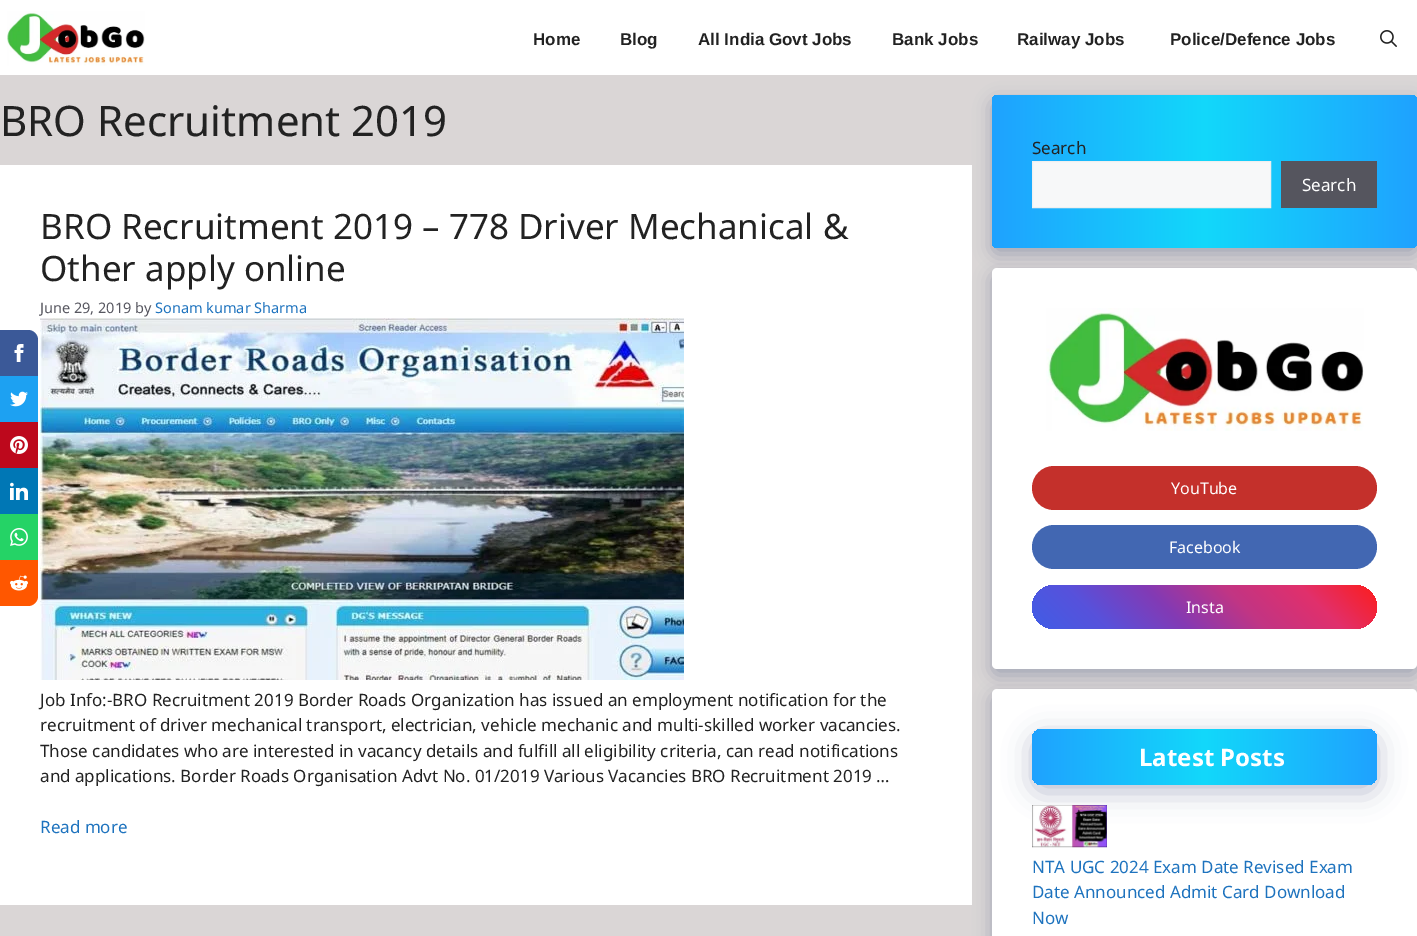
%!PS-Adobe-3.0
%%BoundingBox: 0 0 1417 936
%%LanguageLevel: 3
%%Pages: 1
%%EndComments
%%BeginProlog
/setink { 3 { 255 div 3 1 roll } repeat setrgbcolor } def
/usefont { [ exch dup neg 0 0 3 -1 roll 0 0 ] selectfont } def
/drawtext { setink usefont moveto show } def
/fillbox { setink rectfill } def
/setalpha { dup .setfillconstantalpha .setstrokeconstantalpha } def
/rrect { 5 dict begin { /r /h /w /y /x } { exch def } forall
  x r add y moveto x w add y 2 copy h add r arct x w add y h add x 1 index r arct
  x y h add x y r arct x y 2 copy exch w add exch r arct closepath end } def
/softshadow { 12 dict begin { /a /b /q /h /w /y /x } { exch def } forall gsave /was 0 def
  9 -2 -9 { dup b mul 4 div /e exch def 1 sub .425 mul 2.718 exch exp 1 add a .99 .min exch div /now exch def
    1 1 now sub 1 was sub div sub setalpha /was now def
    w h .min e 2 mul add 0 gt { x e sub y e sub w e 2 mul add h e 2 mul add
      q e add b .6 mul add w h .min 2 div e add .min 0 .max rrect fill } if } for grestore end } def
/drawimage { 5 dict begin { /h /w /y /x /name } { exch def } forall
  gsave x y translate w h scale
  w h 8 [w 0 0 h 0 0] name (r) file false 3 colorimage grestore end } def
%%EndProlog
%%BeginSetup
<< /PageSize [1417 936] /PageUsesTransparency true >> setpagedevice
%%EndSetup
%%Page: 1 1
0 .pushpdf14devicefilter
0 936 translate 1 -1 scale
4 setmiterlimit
0 0 1417 936 218 214 214 fillbox
0 165 972 740 255 255 255 fillbox
23 43 99 setink
992 101 425 153 5 9 0.3 softshadow
0 0 1417 75 255 255 255 fillbox
(assets/img1.rgb) 7 11 138 55 drawimage
(Home) 533 45 /LiberationSans-Bold 17 34 34 34 drawtext
(Blog) 620 45 /LiberationSans-Bold 17 34 34 34 drawtext
(All India Govt Jobs) 698 45 /LiberationSans-Bold 17 34 34 34 drawtext
(Bank Jobs) 892 45 /LiberationSans-Bold 17 34 34 34 drawtext
(Railway Jobs) 1017 45 /LiberationSans-Bold 17 34 34 34 drawtext
(Police/Defence Jobs) 1170 45 /LiberationSans-Bold 17 34 34 34 drawtext
(assets/img2.rgb) 1380 30 17 17 drawimage
(BRO Recruitment 2019) 0 136 /NotoSans-Regular 42 34 34 34 drawtext
(BRO Recruitment 2019 – 778 Driver Mechanical &) 40 239 /NotoSans-Regular 35 34 34 34 drawtext
(Other apply online) 40 281 /NotoSans-Regular 35 34 34 34 drawtext
(June 29, 2019 by) 40 313 /NotoSans-Regular 14.5 87 87 96 drawtext
(Sonam kumar Sharma) 155 313 /NotoSans-Regular 14.5 30 115 190 drawtext
(assets/img3.rgb) 40 318 644 362 drawimage
(Job Info:-BRO Recruitment 2019 Border Roads Organization has issued an employment notification for the) 40 706 /NotoSans-Regular 17 34 34 34 drawtext
(recruitment of driver mechanical transport, electrician, vehicle mechanic and multi-skilled worker vacancies.) 40 731 /NotoSans-Regular 17 34 34 34 drawtext
(Those candidates who are interested in vacancy details and fulfill all eligibility criteria, can read notifications) 40 757 /NotoSans-Regular 17 34 34 34 drawtext
(and applications. Border Roads Organisation Advt No. 01/2019 Various Vacancies BRO Recruitment 2019 …) 40 782 /NotoSans-Regular 17 34 34 34 drawtext
(Read more) 40 833 /NotoSans-Regular 17 30 115 190 drawtext
gsave 992 95 425 153 5 rrect clip newpath
<< /ShadingType 2 /ColorSpace /DeviceRGB /Coords [992 172 1417 172] /Extend [true true] /Function << /FunctionType 3 /Domain [0 1] /Functions [<< /FunctionType 2 /Domain [0 1] /C0 [0.122 0.635 1] /C1 [0.071 0.847 0.98] /N 1 >> << /FunctionType 2 /Domain [0 1] /C0 [0.071 0.847 0.98] /C1 [0.122 0.635 1] /N 1 >>] /Bounds [0.5] /Encode [0 1 0 1] >> >> shfill grestore
(Search) 1032 154 /NotoSans-Regular 17 34 34 34 drawtext
247 248 249 setink
1032.5 161.5 moveto 1270.5 161.5 lineto 1270.5 207.5 lineto 1032.5 207.5 lineto closepath gsave fill grestore
240 240 240 setink
stroke
1281 161 96 47 85 85 94 fillbox
(Search) 1302 191 /NotoSans-Regular 17 255 255 255 drawtext
23 43 99 setink
992 274 425 401 5 9 0.3 softshadow
255 255 255 setink
992 268 425 401 5 rrect fill
(assets/img4.rgb) 1046 308 318 123 drawimage
196 48 43 setink
1032 466 345 44 22 rrect fill
(YouTube) 1171 494 /NotoSans-Regular 16 255 255 255 drawtext
66 103 178 setink
1032 525 345 44 22 rrect fill
(Facebook) 1169 553 /NotoSans-Regular 16 255 255 255 drawtext
gsave 1032 585 345 44 22 rrect clip newpath
<< /ShadingType 2 /ColorSpace /DeviceRGB /Coords [1107 704 1302 510] /Extend [true true] /Function << /FunctionType 3 /Domain [0 1] /Functions [<< /FunctionType 2 /Domain [0 1] /C0 [0.251 0.365 0.902] /C1 [0.345 0.318 0.859] /N 1 >> << /FunctionType 2 /Domain [0 1] /C0 [0.345 0.318 0.859] /C1 [0.514 0.227 0.706] /N 1 >> << /FunctionType 2 /Domain [0 1] /C0 [0.514 0.227 0.706] /C1 [0.757 0.208 0.518] /N 1 >> << /FunctionType 2 /Domain [0 1] /C0 [0.757 0.208 0.518] /C1 [0.882 0.188 0.424] /N 1 >> << /FunctionType 2 /Domain [0 1] /C0 [0.882 0.188 0.424] /C1 [0.992 0.114 0.114] /N 1 >>] /Bounds [0.2 0.4 0.6 0.8] /Encode [0 1 0 1 0 1 0 1 0 1] >> >> shfill grestore
(Insta) 1186 613 /NotoSans-Regular 16 255 255 255 drawtext
23 43 99 setink
992 695 425 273 5 9 0.3 softshadow
255 255 255 setink
992 689 425 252 5 rrect fill
23 43 99 setink
1032 736 345 56 10 14 0.3 softshadow
gsave 1032 729 345 56 10 rrect clip newpath
<< /ShadingType 2 /ColorSpace /DeviceRGB /Coords [1032 757 1377 757] /Extend [true true] /Function << /FunctionType 3 /Domain [0 1] /Functions [<< /FunctionType 2 /Domain [0 1] /C0 [0.122 0.635 1] /C1 [0.071 0.847 0.98] /N 1 >> << /FunctionType 2 /Domain [0 1] /C0 [0.071 0.847 0.98] /C1 [0.122 0.635 1] /N 1 >>] /Bounds [0.5] /Encode [0 1 0 1] >> >> shfill grestore
(Latest Posts) 1139 766 /NotoSans-Bold 24 255 255 255 drawtext
(assets/img5.rgb) 1032 805 75 43 drawimage
(NTA UGC 2024 Exam Date Revised Exam) 1032 873 /NotoSans-Regular 17 30 115 190 drawtext
(Date Announced Admit Card Download) 1032 898 /NotoSans-Regular 17 30 115 190 drawtext
(Now) 1032 924 /NotoSans-Regular 17 30 115 190 drawtext
59 89 152 setink
0 330 moveto 28 330 lineto 33.5 330 38 334.5 38 340 curveto 38 376 lineto 0 376 lineto closepath fill
(assets/img6.rgb) 14 344 10 18 drawimage
0 376 38 46 29 161 242 fillbox
(assets/img7.rgb) 10 391 18 16 drawimage
0 422 38 46 189 8 28 fillbox
(assets/img8.rgb) 10 436 18 18 drawimage
0 468 38 46 0 119 181 fillbox
(assets/img9.rgb) 10 482 18 18 drawimage
0 514 38 46 37 211 102 fillbox
(assets/img10.rgb) 10 528 18 18 drawimage
255 87 0 setink
0 560 moveto 38 560 lineto 38 596 lineto 38 601.5 33.5 606 28 606 curveto 0 606 lineto closepath fill
(assets/img11.rgb) 10 575 18 16 drawimage
.poppdf14devicefilter showpage
%%EOF
